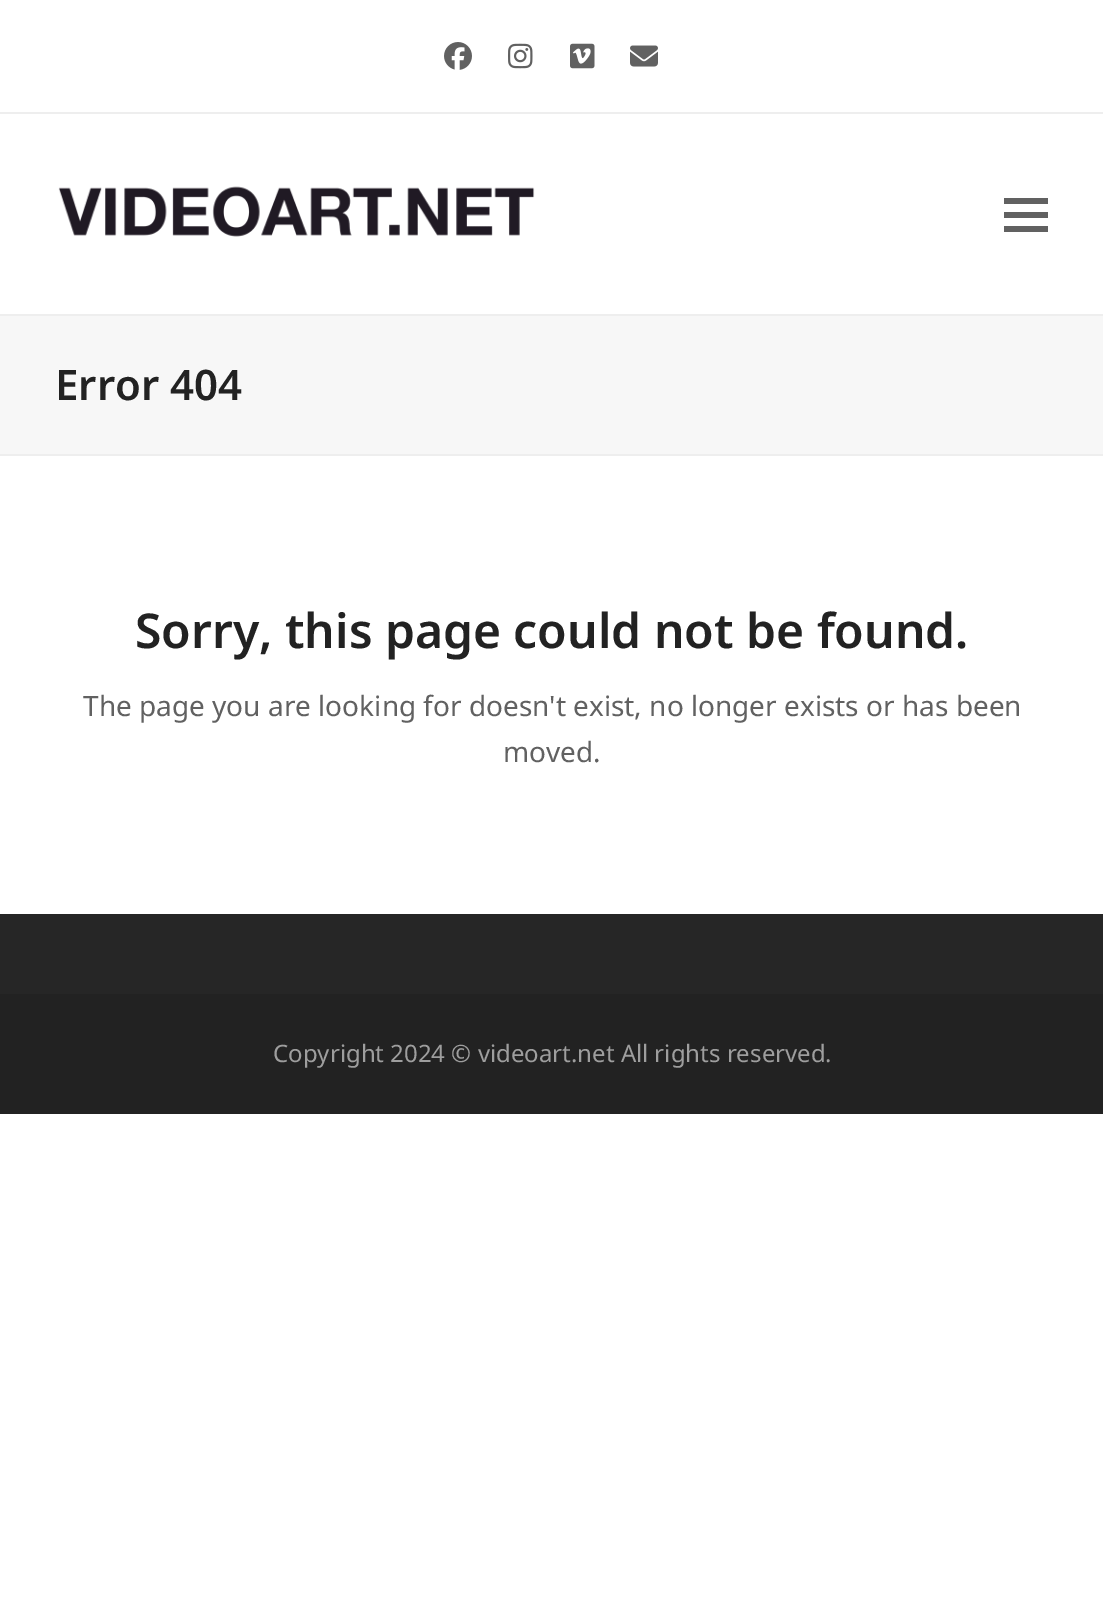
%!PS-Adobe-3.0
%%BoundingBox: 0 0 1103 1608
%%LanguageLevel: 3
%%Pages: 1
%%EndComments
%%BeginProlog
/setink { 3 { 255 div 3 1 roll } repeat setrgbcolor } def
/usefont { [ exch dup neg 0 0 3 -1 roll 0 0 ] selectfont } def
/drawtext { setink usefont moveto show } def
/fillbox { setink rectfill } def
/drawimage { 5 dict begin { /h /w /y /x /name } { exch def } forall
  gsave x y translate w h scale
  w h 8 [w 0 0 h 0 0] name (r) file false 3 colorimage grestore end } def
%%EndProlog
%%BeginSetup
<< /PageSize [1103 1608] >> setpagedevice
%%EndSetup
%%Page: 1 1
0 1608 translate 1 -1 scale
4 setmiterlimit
0 0 1103 1608 255 255 255 fillbox
0 112 1103 2 238 238 238 fillbox
(assets/img1.rgb) 444 42 28 28 drawimage
(assets/img2.rgb) 508 43 25 26 drawimage
(assets/img3.rgb) 570 43 25 26 drawimage
(assets/img4.rgb) 630 45 28 22 drawimage
(assets/img5.rgb) 58 186 477 51 drawimage
1004 212 44 6 97 97 97 fillbox
1004 198 44 6 97 97 97 fillbox
1004 226 44 6 97 97 97 fillbox
0 316 1103 138 247 247 247 fillbox
0 314 1103 2 238 238 238 fillbox
0 454 1103 2 238 238 238 fillbox
(Error 404) 55 400 /NotoSans-SemiBold 42 34 34 34 drawtext
(Sorry, this page could not be found.) 135 648 /NotoSans-SemiBold 48 34 34 34 drawtext
(The page you are looking for doesn't exist, no longer exists or has been) 83 716 /NotoSans-Regular 28 97 97 97 drawtext
(moved.) 503 762 /NotoSans-Regular 28 97 97 97 drawtext
0 914 1103 80 38 38 38 fillbox
0 994 1103 120 34 34 34 fillbox
(Copyright 2024 © videoart.net All rights reserved.) 273 1062 /NotoSans-Regular 24 158 158 158 drawtext
showpage
%%EOF
